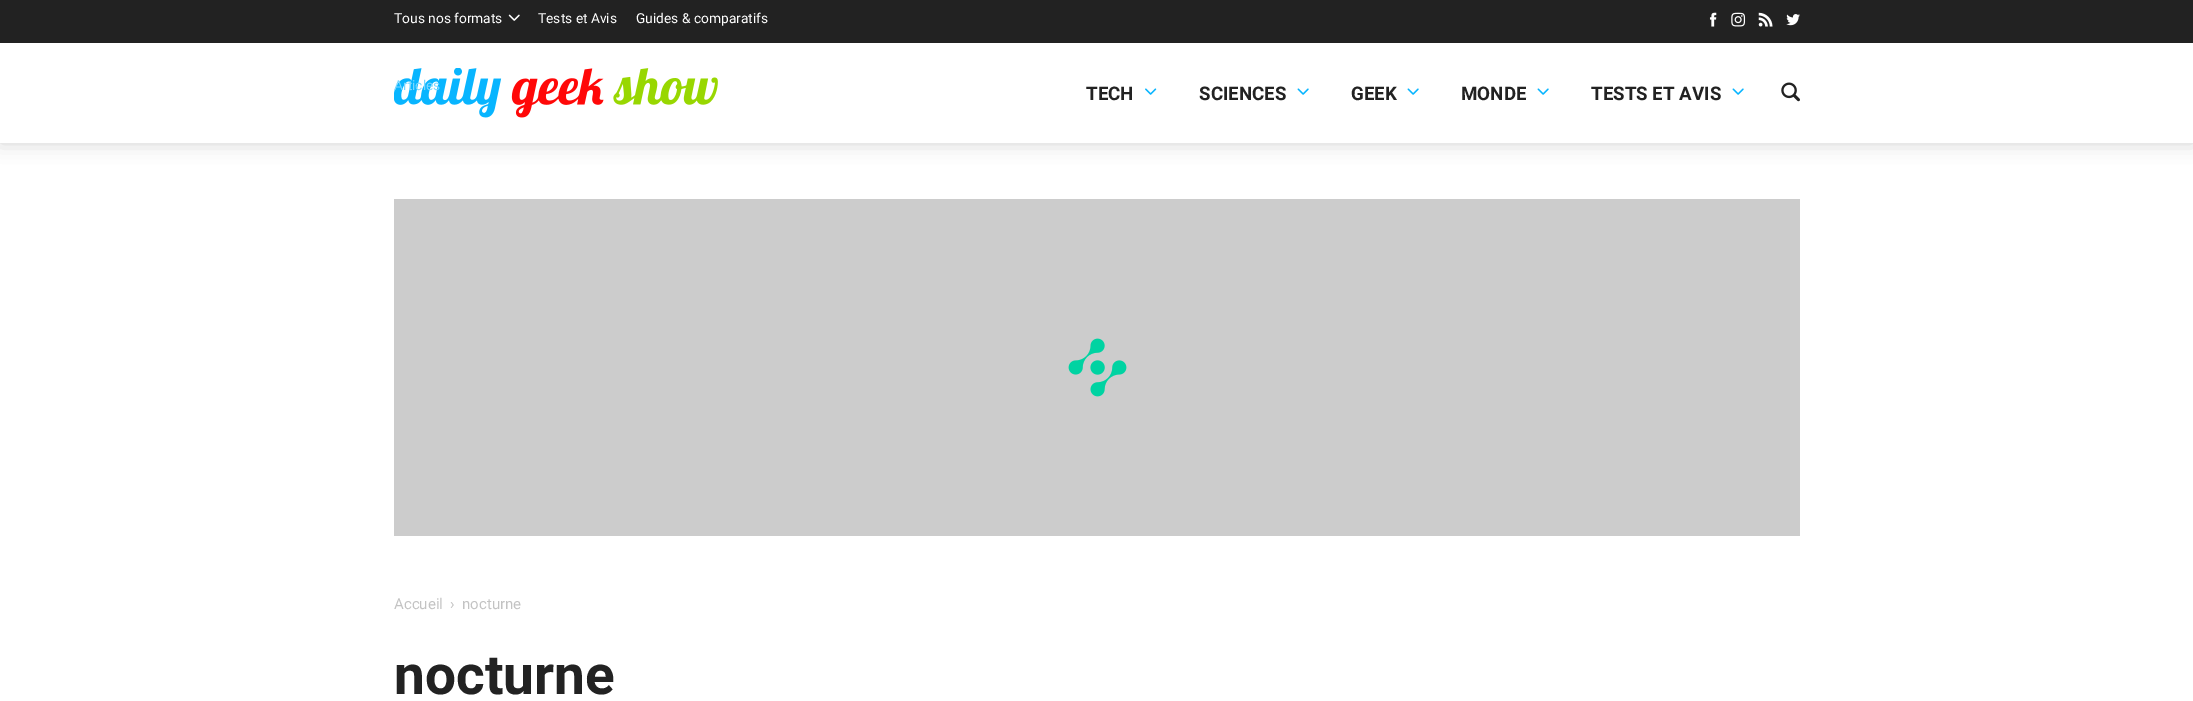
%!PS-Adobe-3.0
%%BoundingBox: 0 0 2193 701
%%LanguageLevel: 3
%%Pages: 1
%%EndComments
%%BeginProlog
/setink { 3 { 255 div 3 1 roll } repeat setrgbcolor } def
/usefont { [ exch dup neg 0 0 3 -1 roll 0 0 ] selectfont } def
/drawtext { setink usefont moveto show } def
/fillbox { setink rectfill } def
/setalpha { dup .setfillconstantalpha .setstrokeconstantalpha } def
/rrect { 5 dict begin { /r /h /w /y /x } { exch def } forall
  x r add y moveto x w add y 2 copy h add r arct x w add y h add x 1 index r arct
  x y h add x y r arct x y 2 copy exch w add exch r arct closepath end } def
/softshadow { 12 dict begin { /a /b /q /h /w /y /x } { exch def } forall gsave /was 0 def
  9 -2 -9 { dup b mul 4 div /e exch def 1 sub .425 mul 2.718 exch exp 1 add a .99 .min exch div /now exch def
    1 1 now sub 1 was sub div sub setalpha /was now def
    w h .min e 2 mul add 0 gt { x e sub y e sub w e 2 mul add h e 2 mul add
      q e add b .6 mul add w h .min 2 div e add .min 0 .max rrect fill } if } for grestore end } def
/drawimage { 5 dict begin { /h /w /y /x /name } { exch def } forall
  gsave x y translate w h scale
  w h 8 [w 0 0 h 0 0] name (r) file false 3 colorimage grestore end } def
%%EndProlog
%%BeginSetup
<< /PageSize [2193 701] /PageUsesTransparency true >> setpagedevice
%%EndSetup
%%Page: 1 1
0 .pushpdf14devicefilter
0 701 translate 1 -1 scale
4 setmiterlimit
0 0 2193 701 255 255 255 fillbox
34 34 34 setink
0 43 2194 100 0 9.5 0.2 softshadow
0 0 2193 43 34 34 34 fillbox
(Tous nos formats) 394 23 /Roboto-Regular 13.75 255 255 255 drawtext
(assets/img1.rgb) 508 14 12 7 drawimage
0 43 2193 100 255 255 255 fillbox
(assets/img6.rgb) 394 68 324 50 drawimage
(Articles) 394 90 /Roboto-Regular 13.75 122 215 255 drawtext
(Tests et Avis) 538 23 /Roboto-Regular 13.75 255 255 255 drawtext
(Guides & comparatifs) 636 23 /Roboto-Regular 13.75 255 255 255 drawtext
(assets/img2.rgb) 1709 12 8 15 drawimage
(assets/img3.rgb) 1731 12 15 15 drawimage
(assets/img4.rgb) 1758 12 15 15 drawimage
(assets/img5.rgb) 1786 14 14 12 drawimage
(TECH) 1086 100 /Roboto-Bold 18.75 34 34 34 drawtext
(assets/img7.rgb) 1145 88 12 7 drawimage
(SCIENCES) 1199 100 /Roboto-Bold 18.75 34 34 34 drawtext
(assets/img8.rgb) 1297 88 12 7 drawimage
(GEEK) 1351 100 /Roboto-Bold 18.75 34 34 34 drawtext
(assets/img8.rgb) 1407 88 12 7 drawimage
(MONDE) 1461 100 /Roboto-Bold 18.75 34 34 34 drawtext
(assets/img8.rgb) 1537 88 12 7 drawimage
(TESTS ET AVIS) 1591 100 /Roboto-Bold 18.75 34 34 34 drawtext
(assets/img8.rgb) 1732 88 12 7 drawimage
(assets/img9.rgb) 1781 82 19 20 drawimage
394 199 1406 337 204 204 204 fillbox
(assets/img10.rgb) 1068 338 59 59 drawimage
(Accueil) 394 609 /Roboto-Regular 15 195 195 195 drawtext
(›) 450 609 /Roboto-Regular 15 195 195 195 drawtext
(nocturne) 462 609 /Roboto-Regular 15 195 195 195 drawtext
(nocturne) 394 694 /Roboto-Bold 55 34 34 34 drawtext
.poppdf14devicefilter showpage
%%EOF
